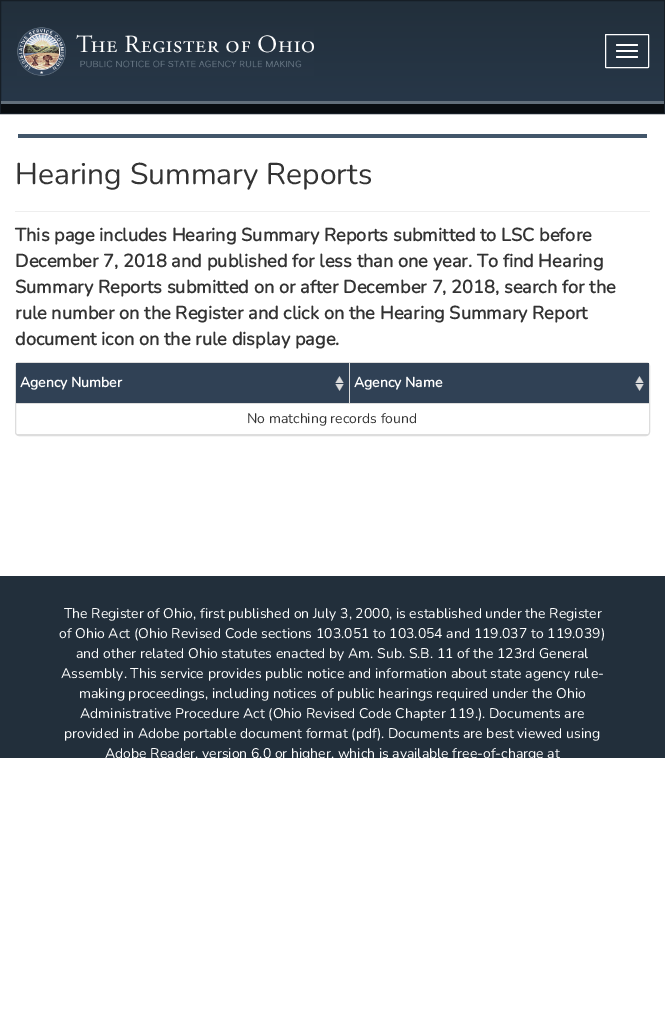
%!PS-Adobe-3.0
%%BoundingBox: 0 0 665 1034
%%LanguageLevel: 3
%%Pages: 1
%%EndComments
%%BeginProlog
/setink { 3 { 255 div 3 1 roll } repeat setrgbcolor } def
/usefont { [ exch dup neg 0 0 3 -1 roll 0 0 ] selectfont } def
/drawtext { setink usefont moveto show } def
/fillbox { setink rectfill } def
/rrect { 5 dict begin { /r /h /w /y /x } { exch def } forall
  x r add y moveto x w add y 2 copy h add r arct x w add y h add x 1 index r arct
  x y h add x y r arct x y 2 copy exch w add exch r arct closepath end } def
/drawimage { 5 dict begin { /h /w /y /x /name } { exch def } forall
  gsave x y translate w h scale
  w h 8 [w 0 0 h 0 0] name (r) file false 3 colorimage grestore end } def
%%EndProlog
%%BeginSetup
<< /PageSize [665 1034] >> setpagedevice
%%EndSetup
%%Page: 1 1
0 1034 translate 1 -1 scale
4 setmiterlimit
0 0 665 1034 255 255 255 fillbox
gsave 1 1 moveto 664 1 lineto 664 101 lineto 1 101 lineto closepath clip newpath
<< /ShadingType 2 /ColorSpace /DeviceRGB /Coords [333 1 333 113] /Extend [true true] /Function << /FunctionType 2 /Domain [0 1] /C0 [0.133 0.184 0.231] /C1 [0.157 0.22 0.29] /N 1 >> >> shfill grestore
22 30 38 setink
0.5 0.5 664 113 rectstroke
(assets/img1.rgb) 17 27 297 49 drawimage
255 255 255 setink
605.5 34.5 43 33 0.5 rrect stroke
616 44 22 2 1 rrect fill
616 50 22 2 1 rrect fill
616 56 22 2 1 rrect fill
1 101 663 3 98 111 122 fillbox
1 104 663 9 9 13 16 fillbox
18 134 629 4 66 86 106 fillbox
(Hearing Summary Reports) 15 184 /Nunito-ExtraLight 30 51 51 51 drawtext
15 211 635 1 238 238 238 fillbox
(This page includes Hearing Summary Reports submitted to LSC before) 15 241 /Nunito-Bold 18.2 51 51 51 drawtext
(December 7, 2018 and published for less than one year. To find Hearing) 15 267 /Nunito-Bold 18.2 51 51 51 drawtext
(Summary Reports submitted on or after December 7, 2018, search for the) 15 293 /Nunito-Bold 18.2 51 51 51 drawtext
(rule number on the Register and click on the Hearing Summary Report) 15 319 /Nunito-Bold 18.2 51 51 51 drawtext
(document icon on the rule display page.) 15 345 /Nunito-Bold 18.2 51 51 51 drawtext
221 221 221 setink
15.5 362.5 634 73 3.5 rrect stroke
16 434 633 1 221 221 221 fillbox
16 363 633 40 48 65 85 fillbox
349 403 300 1 221 221 221 fillbox
349 363 1 41 221 221 221 fillbox
16 403 334 1 221 221 221 fillbox
(assets/img2.rgb) 335 376 9 15 drawimage
(Agency Number) 20 387 /Nunito-Bold 14 255 255 255 drawtext
(assets/img2.rgb) 635 376 9 15 drawimage
(Agency Name) 354 387 /Nunito-Bold 14 255 255 255 drawtext
(No matching records found) 247 423 /Nunito-ExtraLight 14 51 51 51 drawtext
0 576 665 182 34 47 59 fillbox
(The Register of Ohio, first published on July 3, 2000, is established under the Register) 64 618 /Nunito-ExtraLight 14 255 255 255 drawtext
(of Ohio Act \(Ohio Revised Code sections 103.051 to 103.054 and 119.037 to 119.039\)) 59 638 /Nunito-ExtraLight 14 255 255 255 drawtext
(and other related Ohio statutes enacted by Am. Sub. S.B. 11 of the 123rd General) 76 658 /Nunito-ExtraLight 14 255 255 255 drawtext
(Assembly. This service provides public notice and information about state agency rule-) 61 678 /Nunito-ExtraLight 14 255 255 255 drawtext
(making proceedings, including notices of public hearings required under the Ohio) 79 698 /Nunito-ExtraLight 14 255 255 255 drawtext
(Administrative Procedure Act \(Ohio Revised Code Chapter 119.\). Documents are) 80 718 /Nunito-ExtraLight 14 255 255 255 drawtext
(provided in Adobe portable document format \(pdf\). Documents are best viewed using) 64 738 /Nunito-ExtraLight 14 255 255 255 drawtext
(Adobe Reader, version 6.0 or higher, which is available free-of-charge at) 105 758 /Nunito-ExtraLight 14 255 255 255 drawtext
showpage
%%EOF
